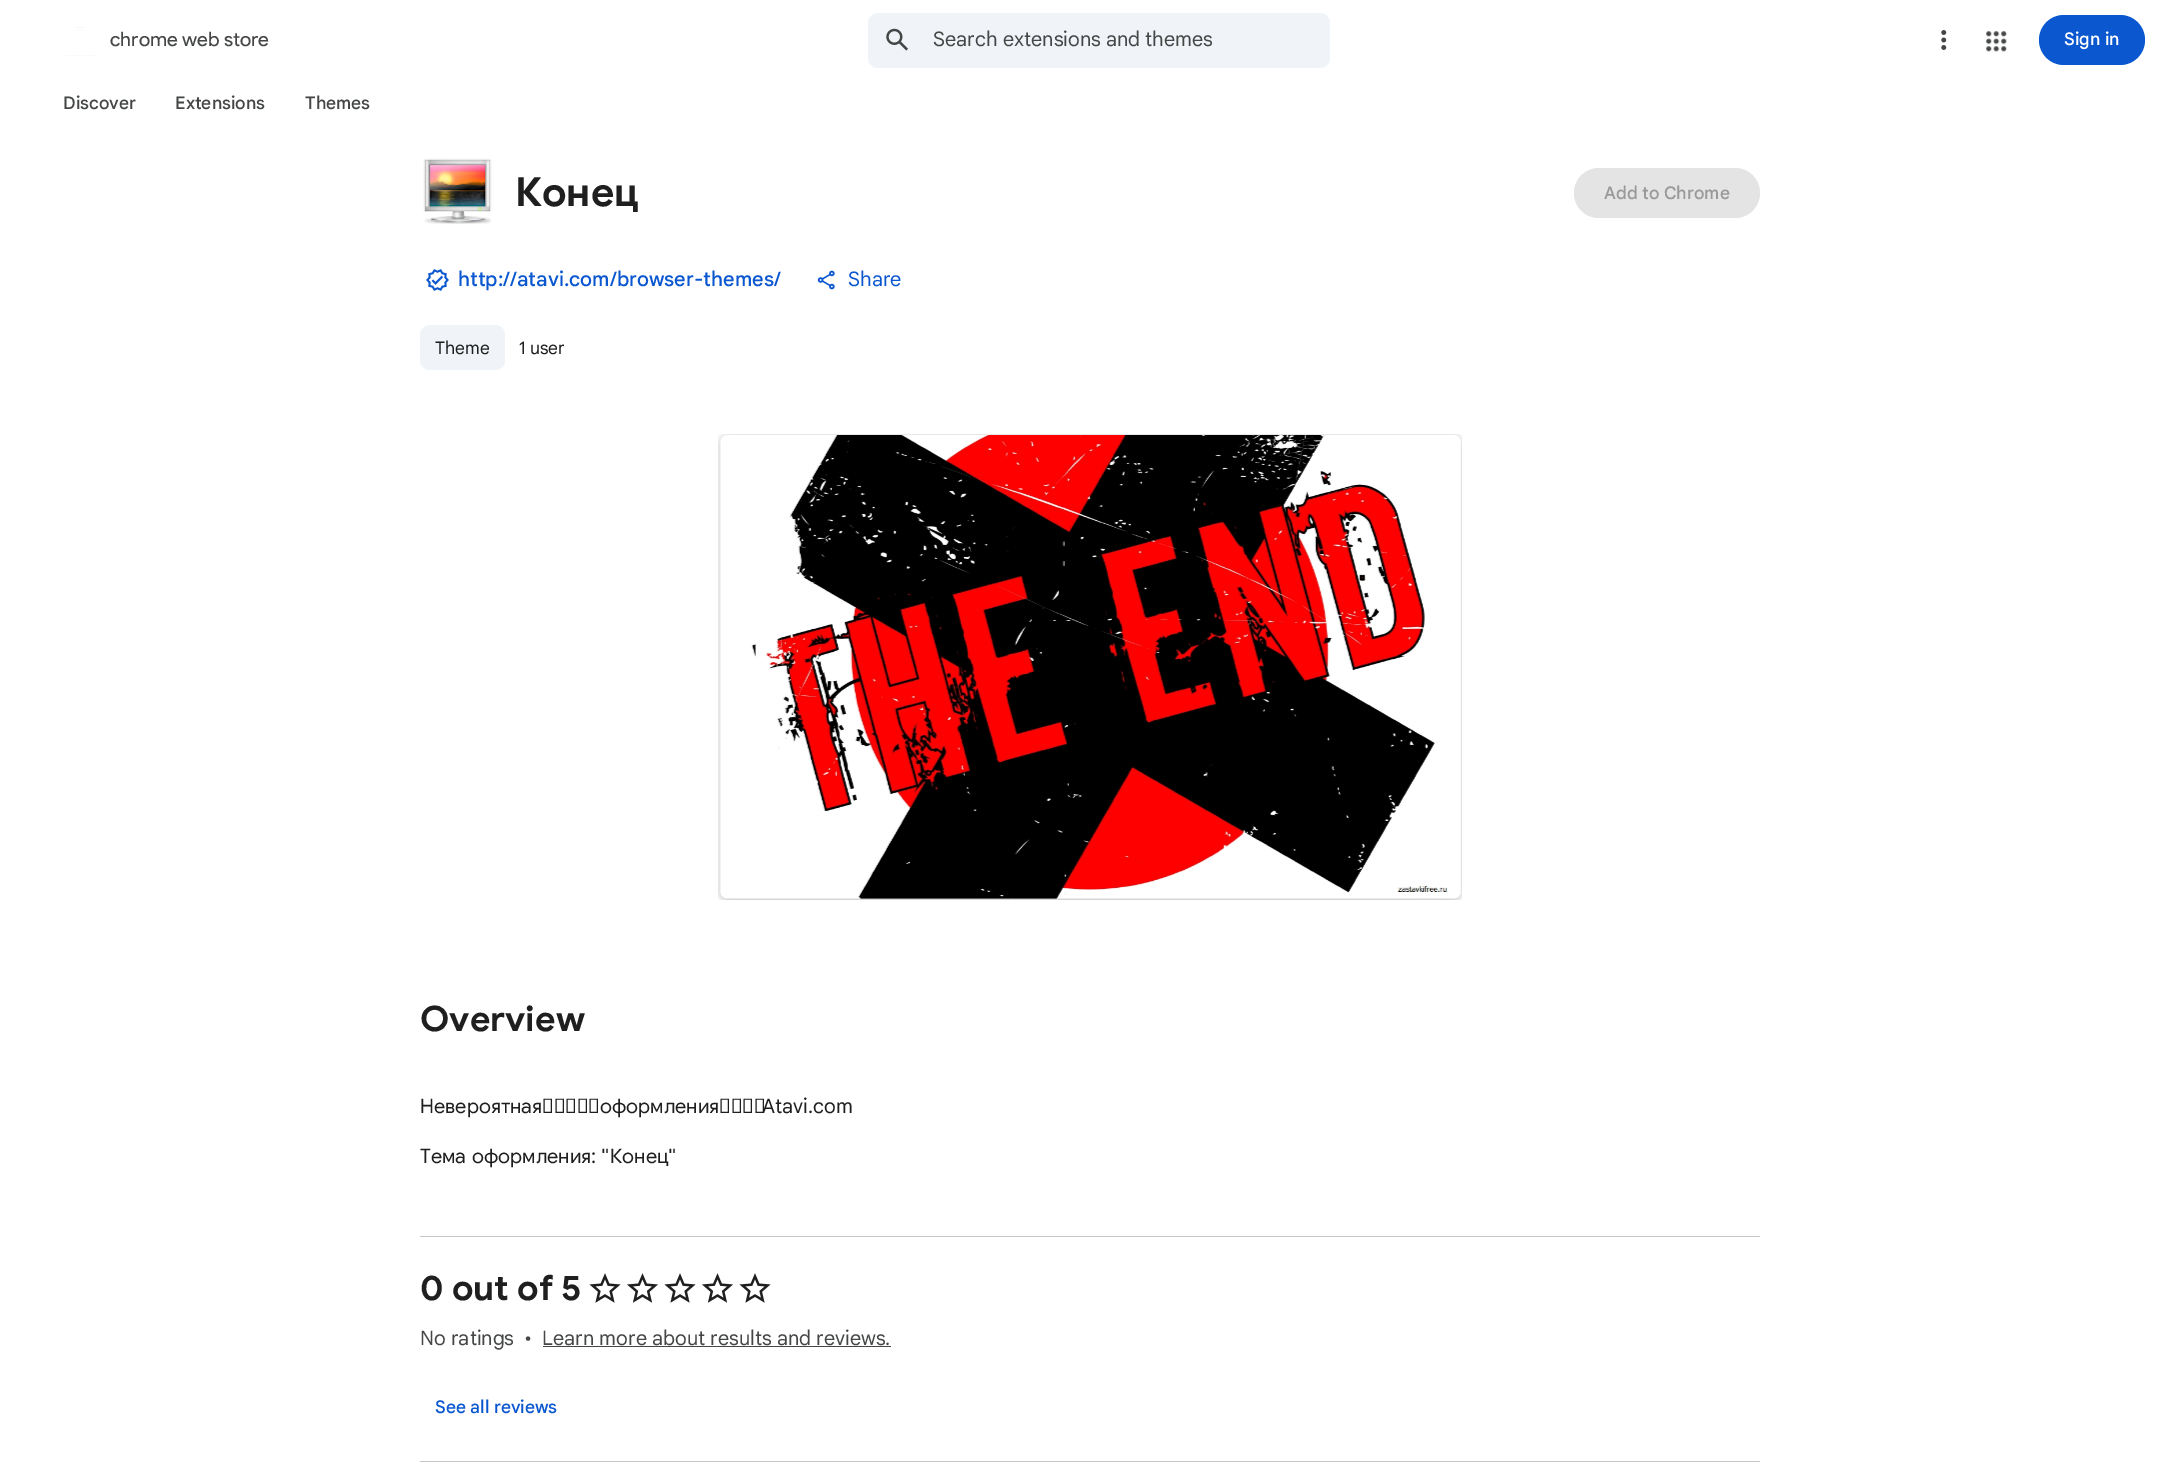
%!PS-Adobe-3.0
%%BoundingBox: 0 0 2179 1473
%%LanguageLevel: 3
%%Pages: 1
%%EndComments
%%BeginProlog
/setink { 3 { 255 div 3 1 roll } repeat setrgbcolor } def
/usefont { [ exch dup neg 0 0 3 -1 roll 0 0 ] selectfont } def
/drawtext { setink usefont moveto show } def
/fillbox { setink rectfill } def
/rrect { 5 dict begin { /r /h /w /y /x } { exch def } forall
  x r add y moveto x w add y 2 copy h add r arct x w add y h add x 1 index r arct
  x y h add x y r arct x y 2 copy exch w add exch r arct closepath end } def
/drawimage { 5 dict begin { /h /w /y /x /name } { exch def } forall
  gsave x y translate w h scale
  w h 8 [w 0 0 h 0 0] name (r) file false 3 colorimage grestore end } def
%%EndProlog
%%BeginSetup
<< /PageSize [2179 1473] >> setpagedevice
%%EndSetup
%%Page: 1 1
0 1473 translate 1 -1 scale
4 setmiterlimit
0 0 2179 1473 255 255 255 fillbox
(assets/img1.rgb) 63 27 34 29 drawimage
(chrome web store) 110 46 /ProductSans-Regular 20 68 71 70 drawtext
240 244 249 setink
868 13 462 55 10 rrect fill
(assets/img2.rgb) 886 28 22 23 drawimage
(Search extensions and themes) 933 46 /GoogleSans-Regular 20 68 71 70 drawtext
(assets/img3.rgb) 1941 30 6 20 drawimage
(assets/img4.rgb) 1986 31 21 21 drawimage
11 87 208 setink
2039 15 106 50 25 rrect fill
(Sign in) 2064 45 /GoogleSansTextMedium-Medium 17.5 255 255 255 drawtext
(Discover) 63 109 /GoogleSansTextMedium-Medium 17.5 68 71 70 drawtext
(Extensions) 175 109 /GoogleSansTextMedium-Medium 17.5 68 71 70 drawtext
(Themes) 305 109 /GoogleSansTextMedium-Medium 17.5 68 71 70 drawtext
(assets/img5.rgb) 423 158 69 66 drawimage
(Конец) 515 206 /GoogleSans-Bold 40 31 31 31 drawtext
228 228 228 setink
1574 168 186 50 25 rrect fill
(Add to Chrome) 1604 199 /GoogleSansTextMedium-Medium 17.5 153 153 153 drawtext
(assets/img6.rgb) 426 269 23 22 drawimage
(http://atavi.com/browser-themes/) 458 286 /GoogleSans-Medium 20 11 87 208 drawtext
(assets/img7.rgb) 817 270 18 20 drawimage
(Share) 848 286 /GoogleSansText-Regular 20 11 87 208 drawtext
240 244 249 setink
420 325 85 45 10 rrect fill
(Theme) 435 354 /GoogleSans-Regular 17.5 31 31 31 drawtext
(1 user) 519 354 /GoogleSans-Regular 17.5 31 31 31 drawtext
(assets/img8.rgb) 718 434 744 466 drawimage
420 1236 1340 1 196 199 197 fillbox
(Overview) 420 1031 /GoogleSans-Bold 35 31 31 31 drawtext
/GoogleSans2-Regular 20 usefont
420 1113 moveto 1 0 32 (Невероятная тема оформления для) widthshow
(Atavi.com) 762 1113 /GoogleSans-Regular 20 31 31 31 drawtext
(Тема) 420 1163 /GoogleSans2-Regular 20 31 31 31 drawtext
(оформления) 472 1163 /GoogleSans2-Regular 20 31 31 31 drawtext
(: ") 591 1163 /GoogleSans-Regular 20 31 31 31 drawtext
(Конец) 610 1163 /GoogleSans2-Regular 20 31 31 31 drawtext
(") 668 1163 /GoogleSans-Regular 20 31 31 31 drawtext
420 1461 1340 1 196 199 197 fillbox
(0 out of 5) 420 1300 /GoogleSans-Bold 35 31 31 31 drawtext
(assets/img9.rgb) 589 1273 32 30 drawimage
(assets/img10.rgb) 627 1273 31 30 drawimage
(assets/img9.rgb) 664 1273 32 30 drawimage
(assets/img10.rgb) 702 1273 31 30 drawimage
(assets/img9.rgb) 739 1273 32 30 drawimage
(No ratings) 420 1345 /GoogleSans-Regular 20 68 71 70 drawtext
(•) 524 1345 /GoogleSans-Regular 20 68 71 70 drawtext
(Learn more about results and reviews.) 542 1345 /GoogleSans-Regular 20 68 71 70 drawtext
543 1346 348 1 68 71 70 fillbox
(See all reviews) 435 1413 /GoogleSansTextMedium-Medium 17.5 11 87 208 drawtext
showpage
%%EOF
